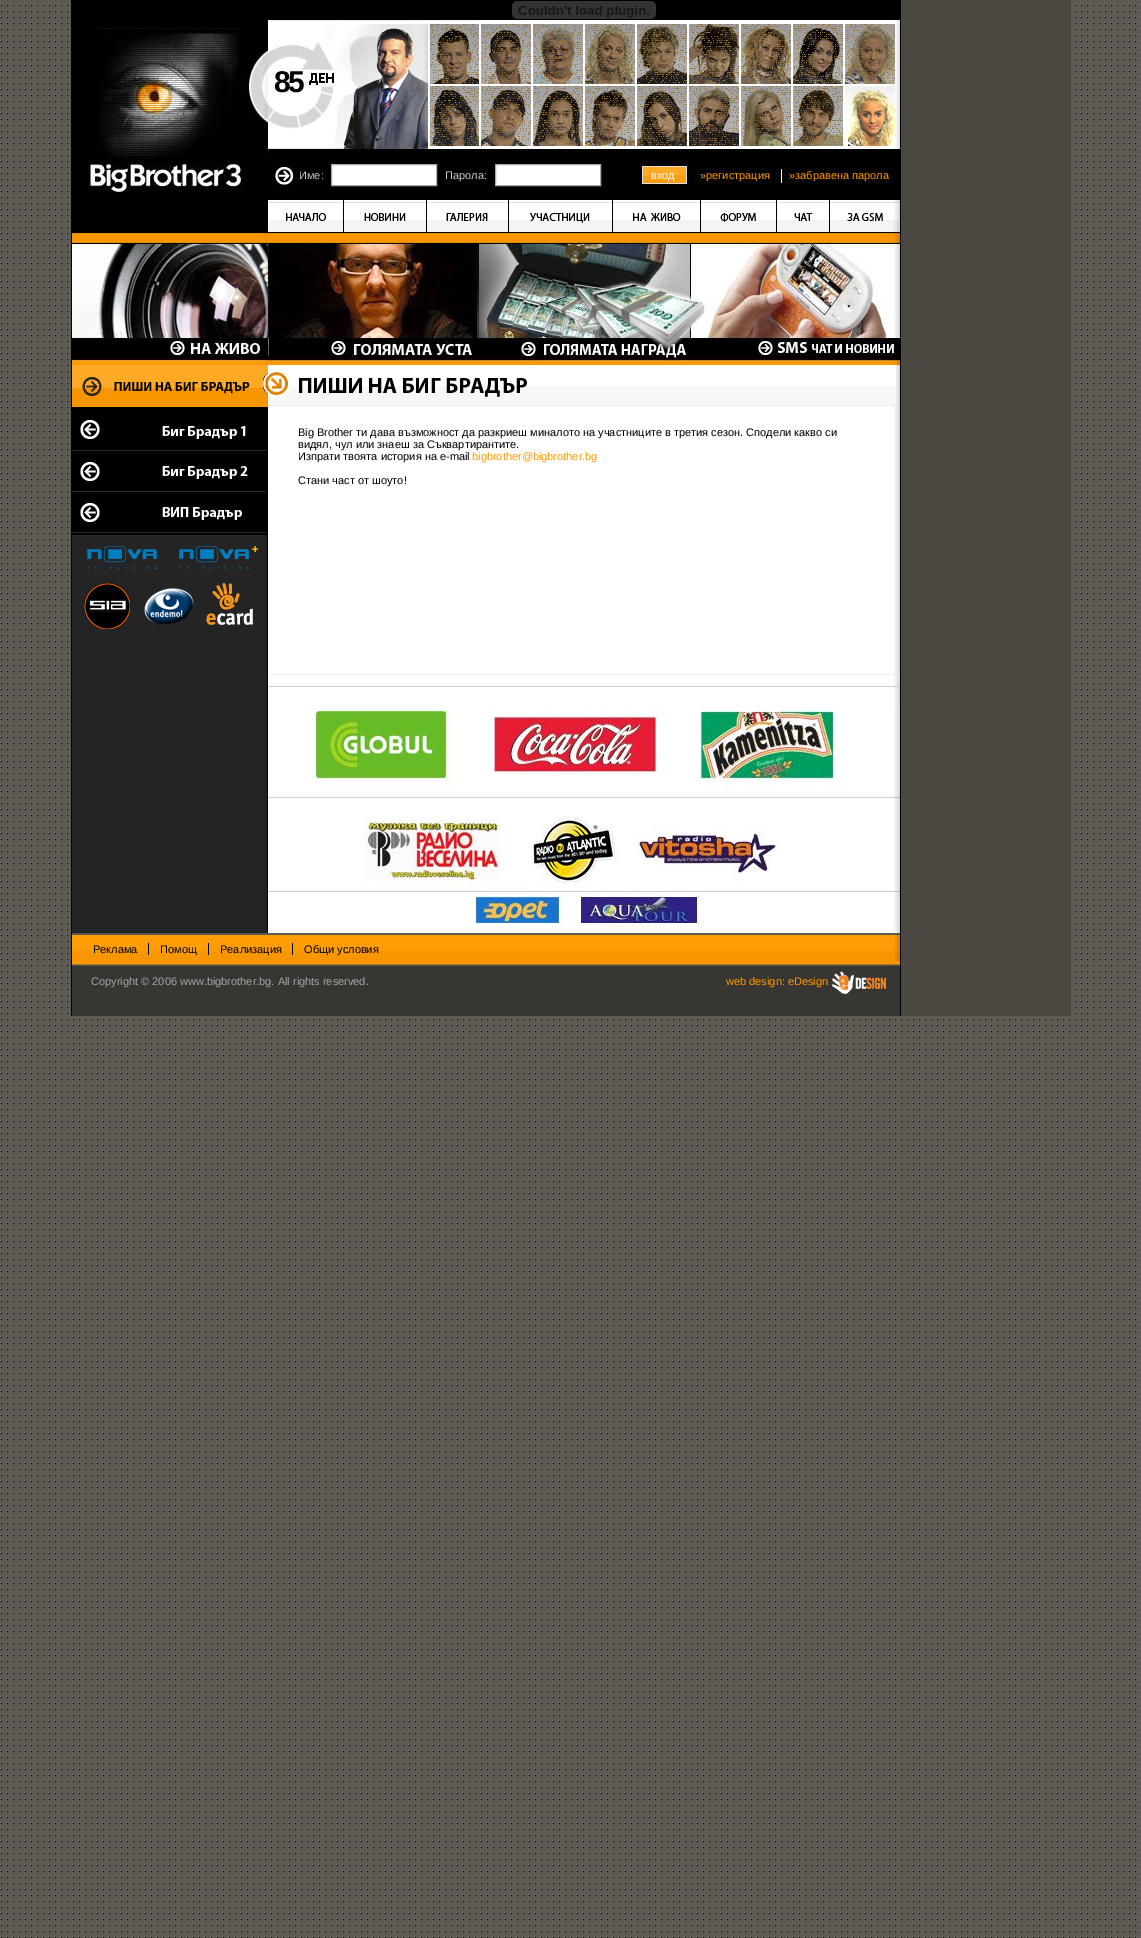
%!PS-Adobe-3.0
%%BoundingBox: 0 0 1141 1938
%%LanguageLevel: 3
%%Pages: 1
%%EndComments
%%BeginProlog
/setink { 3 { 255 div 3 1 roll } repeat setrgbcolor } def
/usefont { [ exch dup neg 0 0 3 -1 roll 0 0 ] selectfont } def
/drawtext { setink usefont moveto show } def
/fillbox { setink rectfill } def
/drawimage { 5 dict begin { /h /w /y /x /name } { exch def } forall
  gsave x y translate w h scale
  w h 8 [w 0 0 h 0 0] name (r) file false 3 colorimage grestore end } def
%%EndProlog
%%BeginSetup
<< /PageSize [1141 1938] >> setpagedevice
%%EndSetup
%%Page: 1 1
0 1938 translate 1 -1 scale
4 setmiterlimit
0 0 1141 1938 92 90 83 fillbox
(assets/img1.rgb) 0 4 1141 1934 drawimage
(assets/img2.rgb) 71 0 1000 1016 drawimage
72 0 828 243 0 0 0 fillbox
(assets/img3.rgb) 90 20 245 172 drawimage
(assets/img4.rgb) 512 1 144 18 drawimage
/LiberationSans-Bold 30 usefont
274 92 moveto -3 0 (85) ashow
(assets/img5.rgb) 335 20 565 129 drawimage
(Име:) 299 179 /LiberationSans-Regular 11 204 204 204 drawtext
255 255 255 setink
331.5 164.5 moveto 436.5 164.5 lineto 436.5 185.5 lineto 331.5 185.5 lineto closepath gsave fill grestore
169 169 169 setink
stroke
(Парола:) 445 179 /LiberationSans-Regular 11 204 204 204 drawtext
255 255 255 setink
495.5 164.5 moveto 600.5 164.5 lineto 600.5 185.5 lineto 495.5 185.5 lineto closepath gsave fill grestore
169 169 169 setink
stroke
(assets/img6.rgb) 642 166 45 18 drawimage
(вход) 651 179 /LiberationSans-Regular 11 255 255 255 drawtext
(»регистрация) 700 179 /LiberationSans-Regular 11 255 154 0 drawtext
781 169 1 14 255 255 255 fillbox
(»забравена парола) 789 179 /LiberationSans-Regular 11 255 154 0 drawtext
(assets/img7.rgb) 72 200 828 43 drawimage
71 243 830 1 0 0 0 fillbox
(assets/img8.rgb) 72 244 828 121 drawimage
(assets/img9.rgb) 72 365 196 42 drawimage
(assets/img10.rgb) 263 373 5 21 drawimage
(assets/img11.rgb) 72 407 195 222 drawimage
268 386 628 19 247 247 247 fillbox
893 365 3 21 255 255 255 fillbox
268 405 628 1 241 240 240 fillbox
(assets/img12.rgb) 268 372 259 25 drawimage
268 674 632 1 241 240 240 fillbox
(Big Brother ти дава възможност да разкриеш миналото на участниците в третия сезон. Сподели какво си) 298 436 /LiberationSans-Regular 11 0 0 0 drawtext
(видял, чул или знаеш за Съквартирантите.) 298 448 /LiberationSans-Regular 11 0 0 0 drawtext
(Изпрати твоята история на e-mail) 298 460 /LiberationSans-Regular 11 0 0 0 drawtext
(bigbrother@bigbrother.bg) 472 460 /LiberationSans-Regular 11 255 154 0 drawtext
(Стани част от шоуто!) 298 484 /LiberationSans-Regular 11 0 0 0 drawtext
268 686 632 1 206 206 206 fillbox
(assets/img13.rgb) 268 711 632 212 drawimage
72 966 828 50 55 54 50 fillbox
(assets/img14.rgb) 72 935 828 29 drawimage
72 933 828 2 92 90 83 fillbox
72 964 828 1 165 115 38 fillbox
(Реклама) 93 953 /LiberationSans-Regular 11 0 0 0 drawtext
148 943 1 12 0 0 0 fillbox
(Помощ) 160 953 /LiberationSans-Regular 11 0 0 0 drawtext
208 943 1 12 0 0 0 fillbox
(Реализация) 220 953 /LiberationSans-Regular 11 0 0 0 drawtext
292 943 1 12 0 0 0 fillbox
(Общи условия) 304 953 /LiberationSans-Regular 11 0 0 0 drawtext
72 965 828 1 81 80 76 fillbox
(Copyright © 2006 www.bigbrother.bg. All rights reserved.) 91 985 /LiberationSans-Regular 11 165 165 165 drawtext
(web design: eDesign) 726 985 /LiberationSans-Regular 11 255 154 0 drawtext
(assets/img15.rgb) 832 971 54 23 drawimage
showpage
%%EOF
